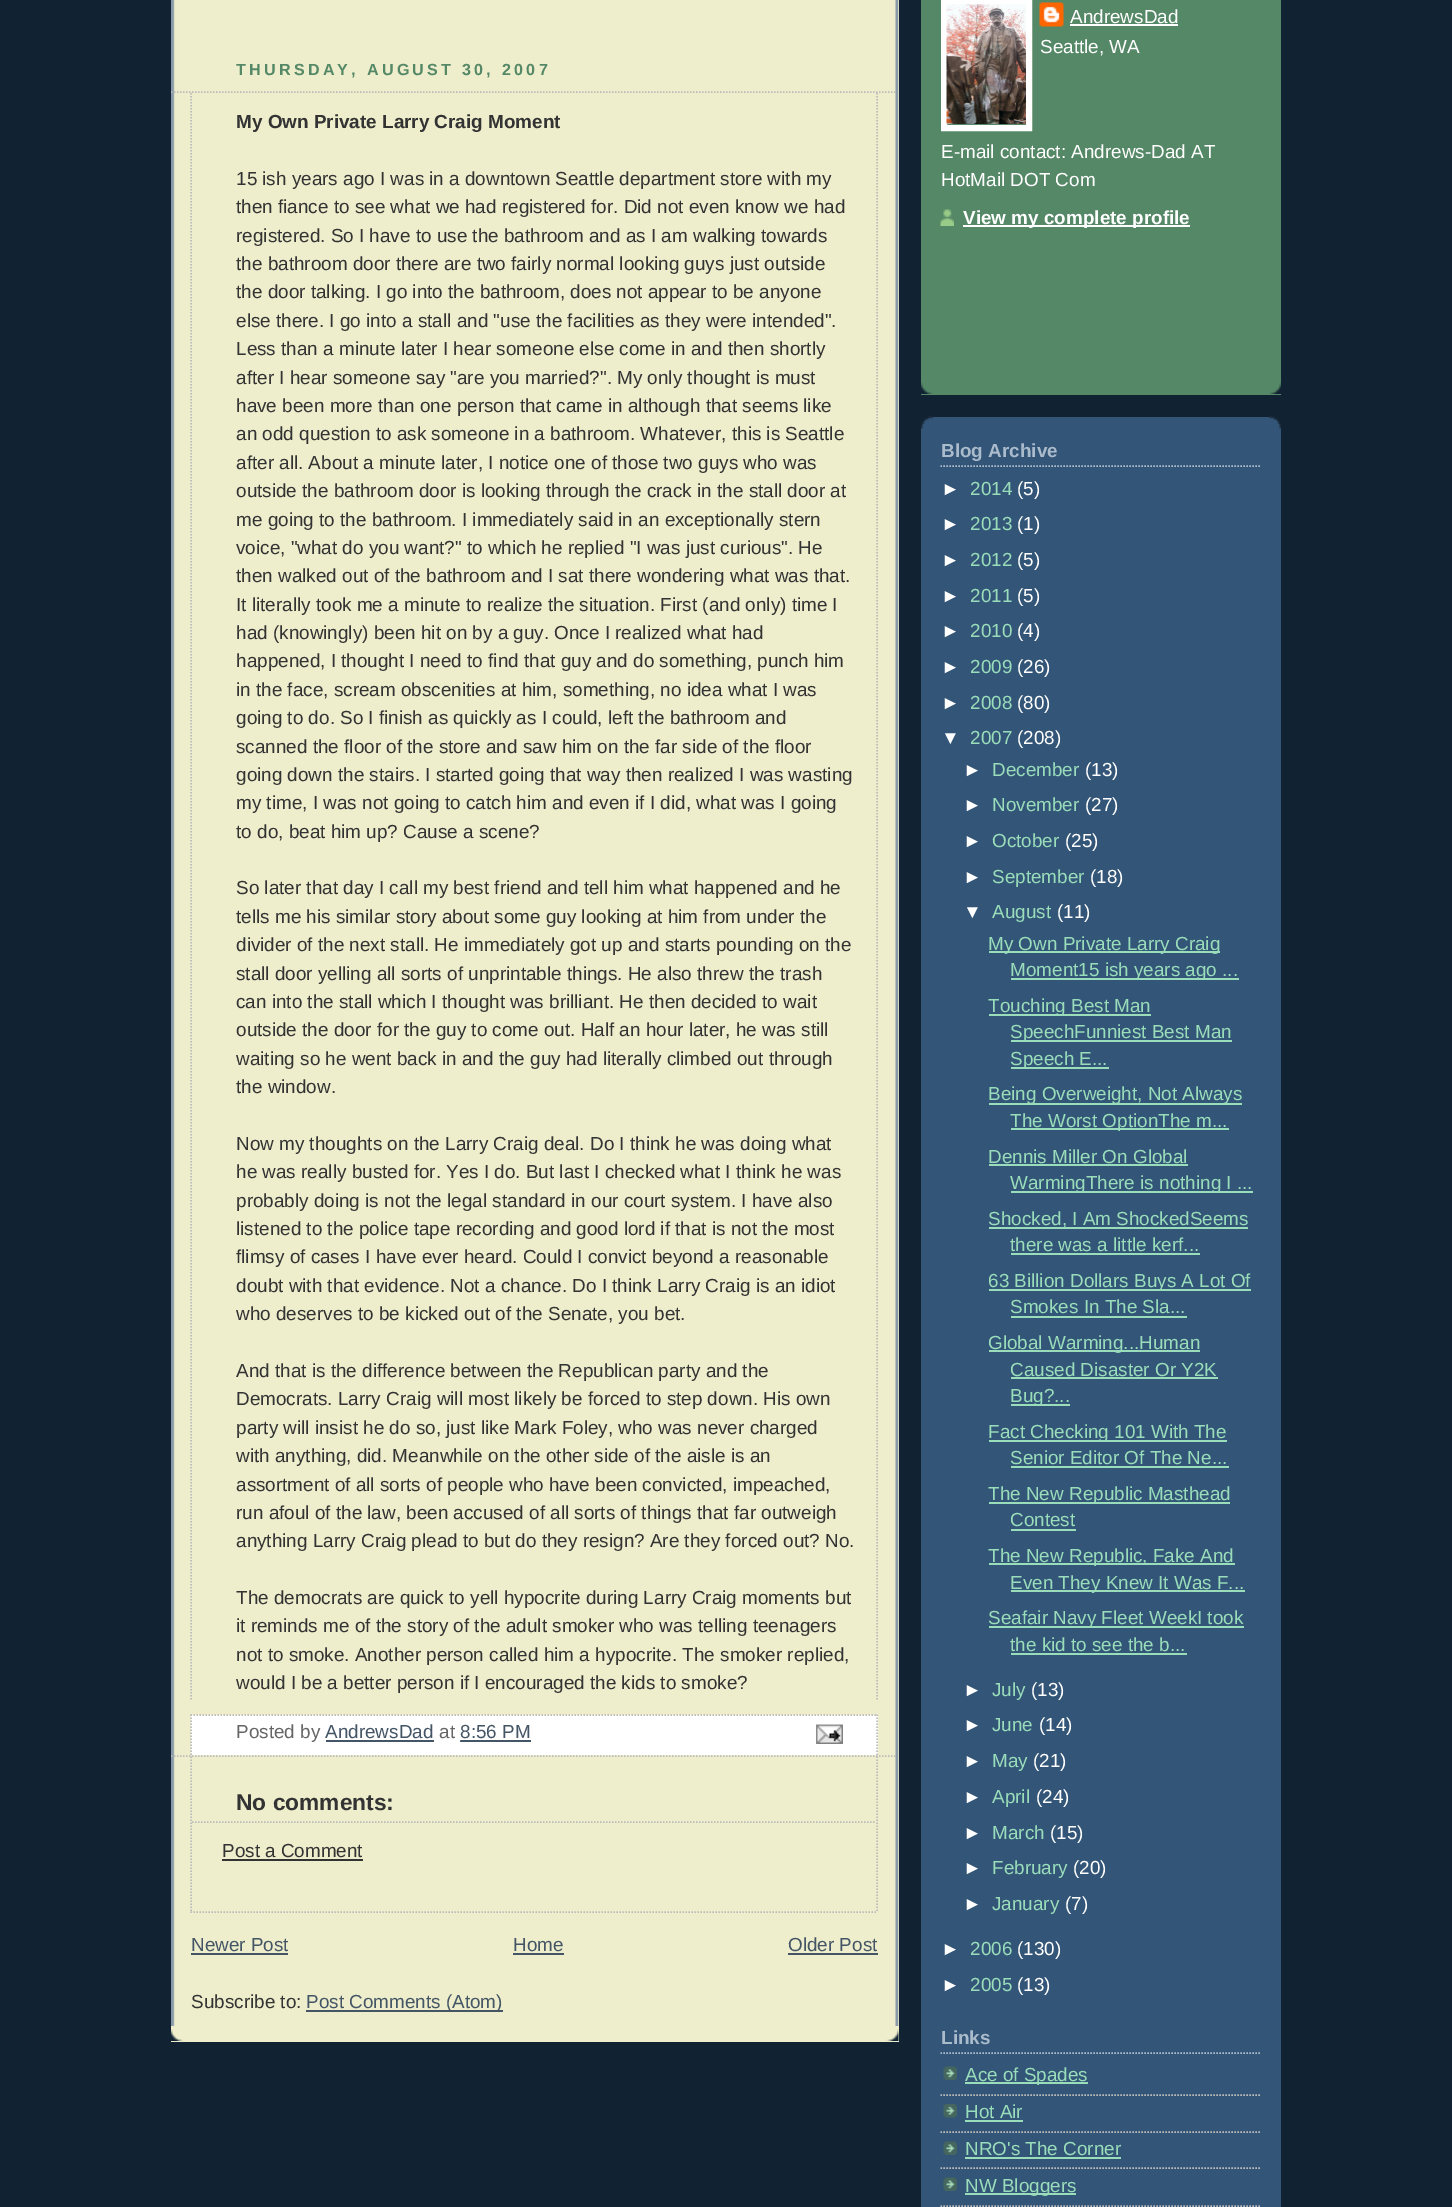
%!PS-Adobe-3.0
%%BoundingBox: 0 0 1452 2207
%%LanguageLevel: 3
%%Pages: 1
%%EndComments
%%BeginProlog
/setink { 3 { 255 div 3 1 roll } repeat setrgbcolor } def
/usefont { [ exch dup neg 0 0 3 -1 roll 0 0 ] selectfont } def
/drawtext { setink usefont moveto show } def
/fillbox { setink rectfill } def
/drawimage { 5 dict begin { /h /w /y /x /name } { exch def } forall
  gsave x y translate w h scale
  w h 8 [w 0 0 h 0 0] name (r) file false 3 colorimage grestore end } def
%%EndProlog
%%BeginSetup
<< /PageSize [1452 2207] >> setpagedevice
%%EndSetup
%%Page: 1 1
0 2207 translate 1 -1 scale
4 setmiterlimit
0 0 1452 2207 17 34 51 fillbox
171 0 728 2042 238 238 204 fillbox
(assets/img1.rgb) 171 2029 728 12 drawimage
(assets/img2.rgb) 171 0 728 2026 drawimage
/LiberationSans-Bold 16.1 usefont
85 136 102 setink
236 75 moveto 3.25 0 (THURSDAY, AUGUST 30, 2007) ashow
187 187 187 setink
1.5 setlinewidth
[1.5 1.5] 0 setdash
171 92 moveto 897 92 lineto stroke
171 1756 moveto 897 1756 lineto stroke
877 93 moveto 877 1699.5 lineto stroke
191 93 moveto 191 1699.5 lineto stroke
(My Own Private Larry Craig Moment) 236 128 /LiberationSans-Bold 18.9 51 51 51 drawtext
(15 ish years ago I was in a downtown Seattle department store with my) 236 185 /LiberationSans-Regular 18.9 51 51 51 drawtext
(then fiance to see what we had registered for. Did not even know we had) 236 213 /LiberationSans-Regular 18.9 51 51 51 drawtext
(registered. So I have to use the bathroom and as I am walking towards) 236 242 /LiberationSans-Regular 18.9 51 51 51 drawtext
(the bathroom door there are two fairly normal looking guys just outside) 236 270 /LiberationSans-Regular 18.9 51 51 51 drawtext
(the door talking. I go into the bathroom, does not appear to be anyone) 236 298 /LiberationSans-Regular 18.9 51 51 51 drawtext
(else there. I go into a stall and "use the facilities as they were intended".) 236 327 /LiberationSans-Regular 18.9 51 51 51 drawtext
(Less than a minute later I hear someone else come in and then shortly) 236 355 /LiberationSans-Regular 18.9 51 51 51 drawtext
(after I hear someone say "are you married?". My only thought is must) 236 384 /LiberationSans-Regular 18.9 51 51 51 drawtext
(have been more than one person that came in although that seems like) 236 412 /LiberationSans-Regular 18.9 51 51 51 drawtext
(an odd question to ask someone in a bathroom. Whatever, this is Seattle) 236 440 /LiberationSans-Regular 18.9 51 51 51 drawtext
(after all. About a minute later, I notice one of those two guys who was) 236 469 /LiberationSans-Regular 18.9 51 51 51 drawtext
(outside the bathroom door is looking through the crack in the stall door at) 236 497 /LiberationSans-Regular 18.9 51 51 51 drawtext
(me going to the bathroom. I immediately said in an exceptionally stern) 236 526 /LiberationSans-Regular 18.9 51 51 51 drawtext
(voice, "what do you want?" to which he replied "I was just curious". He) 236 554 /LiberationSans-Regular 18.9 51 51 51 drawtext
(then walked out of the bathroom and I sat there wondering what was that.) 236 582 /LiberationSans-Regular 18.9 51 51 51 drawtext
(It literally took me a minute to realize the situation. First \(and only\) time I) 236 611 /LiberationSans-Regular 18.9 51 51 51 drawtext
(had \(knowingly\) been hit on by a guy. Once I realized what had) 236 639 /LiberationSans-Regular 18.9 51 51 51 drawtext
(happened, I thought I need to find that guy and do something, punch him) 236 667 /LiberationSans-Regular 18.9 51 51 51 drawtext
(in the face, scream obscenities at him, something, no idea what I was) 236 696 /LiberationSans-Regular 18.9 51 51 51 drawtext
(going to do. So I finish as quickly as I could, left the bathroom and) 236 724 /LiberationSans-Regular 18.9 51 51 51 drawtext
(scanned the floor of the store and saw him on the far side of the floor) 236 753 /LiberationSans-Regular 18.9 51 51 51 drawtext
(going down the stairs. I started going that way then realized I was wasting) 236 781 /LiberationSans-Regular 18.9 51 51 51 drawtext
(my time, I was not going to catch him and even if I did, what was I going) 236 809 /LiberationSans-Regular 18.9 51 51 51 drawtext
(to do, beat him up? Cause a scene?) 236 838 /LiberationSans-Regular 18.9 51 51 51 drawtext
(So later that day I call my best friend and tell him what happened and he) 236 894 /LiberationSans-Regular 18.9 51 51 51 drawtext
(tells me his similar story about some guy looking at him from under the) 236 923 /LiberationSans-Regular 18.9 51 51 51 drawtext
(divider of the next stall. He immediately got up and starts pounding on the) 236 951 /LiberationSans-Regular 18.9 51 51 51 drawtext
(stall door yelling all sorts of unprintable things. He also threw the trash) 236 980 /LiberationSans-Regular 18.9 51 51 51 drawtext
(can into the stall which I thought was brilliant. He then decided to wait) 236 1008 /LiberationSans-Regular 18.9 51 51 51 drawtext
(outside the door for the guy to come out. Half an hour later, he was still) 236 1036 /LiberationSans-Regular 18.9 51 51 51 drawtext
(waiting so he went back in and the guy had literally climbed out through) 236 1065 /LiberationSans-Regular 18.9 51 51 51 drawtext
(the window.) 236 1093 /LiberationSans-Regular 18.9 51 51 51 drawtext
(Now my thoughts on the Larry Craig deal. Do I think he was doing what) 236 1150 /LiberationSans-Regular 18.9 51 51 51 drawtext
(he was really busted for. Yes I do. But last I checked what I think he was) 236 1178 /LiberationSans-Regular 18.9 51 51 51 drawtext
(probably doing is not the legal standard in our court system. I have also) 236 1207 /LiberationSans-Regular 18.9 51 51 51 drawtext
(listened to the police tape recording and good lord if that is not the most) 236 1235 /LiberationSans-Regular 18.9 51 51 51 drawtext
(flimsy of cases I have ever heard. Could I convict beyond a reasonable) 236 1263 /LiberationSans-Regular 18.9 51 51 51 drawtext
(doubt with that evidence. Not a chance. Do I think Larry Craig is an idiot) 236 1292 /LiberationSans-Regular 18.9 51 51 51 drawtext
(who deserves to be kicked out of the Senate, you bet.) 236 1320 /LiberationSans-Regular 18.9 51 51 51 drawtext
(And that is the difference between the Republican party and the) 236 1377 /LiberationSans-Regular 18.9 51 51 51 drawtext
(Democrats. Larry Craig will most likely be forced to step down. His own) 236 1405 /LiberationSans-Regular 18.9 51 51 51 drawtext
(party will insist he do so, just like Mark Foley, who was never charged) 236 1434 /LiberationSans-Regular 18.9 51 51 51 drawtext
(with anything, did. Meanwhile on the other side of the aisle is an) 236 1462 /LiberationSans-Regular 18.9 51 51 51 drawtext
(assortment of all sorts of people who have been convicted, impeached,) 236 1491 /LiberationSans-Regular 18.9 51 51 51 drawtext
(run afoul of the law, been accused of all sorts of things that far outweigh) 236 1519 /LiberationSans-Regular 18.9 51 51 51 drawtext
(anything Larry Craig plead to but do they resign? Are they forced out? No.) 236 1547 /LiberationSans-Regular 18.9 51 51 51 drawtext
(The democrats are quick to yell hypocrite during Larry Craig moments but) 236 1604 /LiberationSans-Regular 18.9 51 51 51 drawtext
(it reminds me of the story of the adult smoker who was telling teenagers) 236 1632 /LiberationSans-Regular 18.9 51 51 51 drawtext
(not to smoke. Another person called him a hypocrite. The smoker replied,) 236 1661 /LiberationSans-Regular 18.9 51 51 51 drawtext
(would I be a better person if I encouraged the kids to smoke?) 236 1689 /LiberationSans-Regular 18.9 51 51 51 drawtext
191 1715 687 40 255 255 255 fillbox
187 187 187 setink
190.5 1715 moveto 877.5 1715 lineto stroke
877 1714.5 moveto 877 1755 lineto stroke
191 1714.5 moveto 191 1755 lineto stroke
(Posted by) 236 1738 /LiberationSans-Regular 18.9 102 102 102 drawtext
(AndrewsDad) 325 1738 /LiberationSans-Regular 18.9 68 85 102 drawtext
326 1740 108 2 68 85 102 fillbox
(at) 439 1738 /LiberationSans-Regular 18.9 102 102 102 drawtext
(8:56 PM) 460 1738 /LiberationSans-Regular 18.9 68 85 102 drawtext
460 1741 moveto 530.5 1741 lineto stroke
461 1740 70 2 68 85 102 fillbox
(assets/img3.rgb) 816 1724 27 20 drawimage
187 187 187 setink
877 1756.5 moveto 877 1912.5 lineto stroke
190.5 1912 moveto 877.5 1912 lineto stroke
191 1756.5 moveto 191 1912.5 lineto stroke
192 1822 moveto 876 1822 lineto stroke
(No comments:) 236 1810 /LiberationSans-Bold 22.75 51 51 51 drawtext
(Post a Comment) 222 1857 /LiberationSans-Regular 18.9 51 51 51 drawtext
222 1859 141 2 51 51 51 fillbox
(Newer Post) 191 1951 /LiberationSans-Regular 18.9 68 85 102 drawtext
191 1953 97 2 68 85 102 fillbox
(Home) 513 1951 /LiberationSans-Regular 18.9 68 85 102 drawtext
513 1953 51 2 68 85 102 fillbox
(Older Post) 788 1951 /LiberationSans-Regular 18.9 68 85 102 drawtext
788 1953 90 2 68 85 102 fillbox
(Subscribe to:) 191 2008 /LiberationSans-Regular 18.9 51 51 51 drawtext
306 2010 197 2 68 85 102 fillbox
(Post Comments \(Atom\)) 306 2008 /LiberationSans-Regular 18.9 68 85 102 drawtext
921 0 360 395 85 136 102 fillbox
(assets/img4.rgb) 921 382 360 12 drawimage
255 255 255 setink
6 setlinewidth
[] 0 setdash
944 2 85 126 rectstroke
(assets/img5.rgb) 946 4 80 120 drawimage
(assets/img6.rgb) 1039 2 25 25 drawimage
(AndrewsDad) 1070 23 /LiberationSans-Regular 18.9 255 255 255 drawtext
1070 24 108 2 255 255 255 fillbox
(Seattle, WA) 1040 53 /LiberationSans-Regular 18.9 255 255 255 drawtext
(E-mail contact: Andrews-Dad AT) 941 158 /LiberationSans-Regular 18.9 255 255 255 drawtext
(HotMail DOT Com) 941 186 /LiberationSans-Regular 18.9 255 255 255 drawtext
(assets/img7.rgb) 940 209 14 17 drawimage
963 225 227 2 255 255 255 fillbox
(View my complete profile) 963 224 /LiberationSans-Bold 18.9 255 255 255 drawtext
921 417 360 1790 51 85 119 fillbox
(assets/img8.rgb) 921 416 360 13 drawimage
170 187 204 setink
1.5 setlinewidth
[1.5 1.5] 0 setdash
940.5 466 moveto 1261.5 466 lineto stroke
(Blog Archive) 941 457 /LiberationSans-Bold 18.9 170 187 204 drawtext
(►) 941 495 /LiberationSans-Regular 18.9 255 255 255 drawtext
(2014) 970 495 /LiberationSans-Regular 18.9 153 221 187 drawtext
(\(5\)) 1017 495 /LiberationSans-Regular 18.9 255 255 255 drawtext
(►) 941 530 /LiberationSans-Regular 18.9 255 255 255 drawtext
(2013) 970 530 /LiberationSans-Regular 18.9 153 221 187 drawtext
(\(1\)) 1017 530 /LiberationSans-Regular 18.9 255 255 255 drawtext
(►) 941 566 /LiberationSans-Regular 18.9 255 255 255 drawtext
(2012) 970 566 /LiberationSans-Regular 18.9 153 221 187 drawtext
(\(5\)) 1017 566 /LiberationSans-Regular 18.9 255 255 255 drawtext
(►) 941 602 /LiberationSans-Regular 18.9 255 255 255 drawtext
(2011) 970 602 /LiberationSans-Regular 18.9 153 221 187 drawtext
(\(5\)) 1017 602 /LiberationSans-Regular 18.9 255 255 255 drawtext
(►) 941 637 /LiberationSans-Regular 18.9 255 255 255 drawtext
(2010) 970 637 /LiberationSans-Regular 18.9 153 221 187 drawtext
(\(4\)) 1017 637 /LiberationSans-Regular 18.9 255 255 255 drawtext
(►) 941 673 /LiberationSans-Regular 18.9 255 255 255 drawtext
(2009) 970 673 /LiberationSans-Regular 18.9 153 221 187 drawtext
(\(26\)) 1017 673 /LiberationSans-Regular 18.9 255 255 255 drawtext
(►) 941 709 /LiberationSans-Regular 18.9 255 255 255 drawtext
(2008) 970 709 /LiberationSans-Regular 18.9 153 221 187 drawtext
(\(80\)) 1017 709 /LiberationSans-Regular 18.9 255 255 255 drawtext
(▼) 941 744 /LiberationSans-Regular 18.9 255 255 255 drawtext
(2007) 970 744 /LiberationSans-Regular 18.9 153 221 187 drawtext
(\(208\)) 1017 744 /LiberationSans-Regular 18.9 255 255 255 drawtext
(►) 963 776 /LiberationSans-Regular 18.9 255 255 255 drawtext
(December) 992 776 /LiberationSans-Regular 18.9 153 221 187 drawtext
(\(13\)) 1085 776 /LiberationSans-Regular 18.9 255 255 255 drawtext
(►) 963 811 /LiberationSans-Regular 18.9 255 255 255 drawtext
(November) 992 811 /LiberationSans-Regular 18.9 153 221 187 drawtext
(\(27\)) 1085 811 /LiberationSans-Regular 18.9 255 255 255 drawtext
(►) 963 847 /LiberationSans-Regular 18.9 255 255 255 drawtext
(October) 992 847 /LiberationSans-Regular 18.9 153 221 187 drawtext
(\(25\)) 1065 847 /LiberationSans-Regular 18.9 255 255 255 drawtext
(►) 963 883 /LiberationSans-Regular 18.9 255 255 255 drawtext
(September) 992 883 /LiberationSans-Regular 18.9 153 221 187 drawtext
(\(18\)) 1090 883 /LiberationSans-Regular 18.9 255 255 255 drawtext
(▼) 963 918 /LiberationSans-Regular 18.9 255 255 255 drawtext
(August) 992 918 /LiberationSans-Regular 18.9 153 221 187 drawtext
(\(11\)) 1057 918 /LiberationSans-Regular 18.9 255 255 255 drawtext
989 951 231 2 153 221 187 fillbox
(My Own Private Larry Craig) 988 950 /LiberationSans-Regular 18.9 153 221 187 drawtext
1011 978 228 2 153 221 187 fillbox
(Moment15 ish years ago ...) 1010 976 /LiberationSans-Regular 18.9 153 221 187 drawtext
989 1014 162 2 153 221 187 fillbox
(Touching Best Man) 988 1012 /LiberationSans-Regular 18.9 153 221 187 drawtext
1011 1040 221 2 153 221 187 fillbox
(SpeechFunniest Best Man) 1010 1038 /LiberationSans-Regular 18.9 153 221 187 drawtext
1011 1067 98 2 153 221 187 fillbox
(Speech E...) 1010 1065 /LiberationSans-Regular 18.9 153 221 187 drawtext
989 1103 253 2 153 221 187 fillbox
(Being Overweight, Not Always) 988 1100 /LiberationSans-Regular 18.9 153 221 187 drawtext
1011 1128 218 2 153 221 187 fillbox
(The Worst OptionThe m...) 1010 1127 /LiberationSans-Regular 18.9 153 221 187 drawtext
(Dennis Miller On Global) 988 1163 /LiberationSans-Regular 18.9 153 221 187 drawtext
989 1164 199 2 153 221 187 fillbox
1011 1191 242 2 153 221 187 fillbox
(WarmingThere is nothing I ...) 1010 1189 /LiberationSans-Regular 18.9 153 221 187 drawtext
989 1227 259 2 153 221 187 fillbox
(Shocked, I Am ShockedSeems) 988 1225 /LiberationSans-Regular 18.9 153 221 187 drawtext
(there was a little kerf...) 1010 1251 /LiberationSans-Regular 18.9 153 221 187 drawtext
1011 1253 189 2 153 221 187 fillbox
989 1289 262 2 153 221 187 fillbox
(63 Billion Dollars Buys A Lot Of) 988 1287 /LiberationSans-Regular 18.9 153 221 187 drawtext
(Smokes In The Sla...) 1010 1313 /LiberationSans-Regular 18.9 153 221 187 drawtext
1011 1316 176 2 153 221 187 fillbox
989 1350 211 2 153 221 187 fillbox
(Global Warming...Human) 988 1349 /LiberationSans-Regular 18.9 153 221 187 drawtext
(Caused Disaster Or Y2K) 1010 1376 /LiberationSans-Regular 18.9 153 221 187 drawtext
1011 1377 207 2 153 221 187 fillbox
1011 1404 59 2 153 221 187 fillbox
(Bug?...) 1010 1402 /LiberationSans-Regular 18.9 153 221 187 drawtext
989 1440 238 2 153 221 187 fillbox
(Fact Checking 101 With The) 988 1438 /LiberationSans-Regular 18.9 153 221 187 drawtext
(Senior Editor Of The Ne...) 1010 1464 /LiberationSans-Regular 18.9 153 221 187 drawtext
1011 1466 218 2 153 221 187 fillbox
989 1502 241 2 153 221 187 fillbox
(The New Republic Masthead) 988 1500 /LiberationSans-Regular 18.9 153 221 187 drawtext
(Contest) 1010 1526 /LiberationSans-Regular 18.9 153 221 187 drawtext
1011 1529 65 2 153 221 187 fillbox
989 1563 246 2 153 221 187 fillbox
(The New Republic, Fake And) 988 1562 /LiberationSans-Regular 18.9 153 221 187 drawtext
1011 1590 234 2 153 221 187 fillbox
(Even They Knew It Was F...) 1010 1589 /LiberationSans-Regular 18.9 153 221 187 drawtext
989 1626 255 2 153 221 187 fillbox
(Seafair Navy Fleet WeekI took) 988 1624 /LiberationSans-Regular 18.9 153 221 187 drawtext
(the kid to see the b...) 1010 1651 /LiberationSans-Regular 18.9 153 221 187 drawtext
1011 1653 176 2 153 221 187 fillbox
(►) 963 1696 /LiberationSans-Regular 18.9 255 255 255 drawtext
(July) 992 1696 /LiberationSans-Regular 18.9 153 221 187 drawtext
(\(13\)) 1031 1696 /LiberationSans-Regular 18.9 255 255 255 drawtext
(►) 963 1731 /LiberationSans-Regular 18.9 255 255 255 drawtext
(June) 992 1731 /LiberationSans-Regular 18.9 153 221 187 drawtext
(\(14\)) 1039 1731 /LiberationSans-Regular 18.9 255 255 255 drawtext
(►) 963 1767 /LiberationSans-Regular 18.9 255 255 255 drawtext
(May) 992 1767 /LiberationSans-Regular 18.9 153 221 187 drawtext
(\(21\)) 1033 1767 /LiberationSans-Regular 18.9 255 255 255 drawtext
(►) 963 1803 /LiberationSans-Regular 18.9 255 255 255 drawtext
(April) 992 1803 /LiberationSans-Regular 18.9 153 221 187 drawtext
(\(24\)) 1036 1803 /LiberationSans-Regular 18.9 255 255 255 drawtext
(►) 963 1839 /LiberationSans-Regular 18.9 255 255 255 drawtext
(March) 992 1839 /LiberationSans-Regular 18.9 153 221 187 drawtext
(\(15\)) 1050 1839 /LiberationSans-Regular 18.9 255 255 255 drawtext
(►) 963 1874 /LiberationSans-Regular 18.9 255 255 255 drawtext
(February) 992 1874 /LiberationSans-Regular 18.9 153 221 187 drawtext
(\(20\)) 1073 1874 /LiberationSans-Regular 18.9 255 255 255 drawtext
(►) 963 1910 /LiberationSans-Regular 18.9 255 255 255 drawtext
(January) 992 1910 /LiberationSans-Regular 18.9 153 221 187 drawtext
(\(7\)) 1065 1910 /LiberationSans-Regular 18.9 255 255 255 drawtext
(►) 941 1955 /LiberationSans-Regular 18.9 255 255 255 drawtext
(2006) 970 1955 /LiberationSans-Regular 18.9 153 221 187 drawtext
(\(130\)) 1017 1955 /LiberationSans-Regular 18.9 255 255 255 drawtext
(►) 941 1991 /LiberationSans-Regular 18.9 255 255 255 drawtext
(2005) 970 1991 /LiberationSans-Regular 18.9 153 221 187 drawtext
(\(13\)) 1017 1991 /LiberationSans-Regular 18.9 255 255 255 drawtext
170 187 204 setink
940.5 2053 moveto 1261.5 2053 lineto stroke
(Links) 941 2044 /LiberationSans-Bold 18.9 170 187 204 drawtext
(assets/img9.rgb) 943 2066 14 14 drawimage
187 187 187 setink
940.5 2095 moveto 1261.5 2095 lineto stroke
965 2082 123 2 153 221 187 fillbox
(Ace of Spades) 965 2081 /LiberationSans-Regular 18.9 153 221 187 drawtext
(assets/img10.rgb) 943 2104 14 14 drawimage
187 187 187 setink
940.5 2132 moveto 1261.5 2132 lineto stroke
(Hot Air) 965 2118 /LiberationSans-Regular 18.9 153 221 187 drawtext
965 2120 58 2 153 221 187 fillbox
(assets/img9.rgb) 943 2141 14 14 drawimage
187 187 187 setink
940.5 2168 moveto 1261.5 2168 lineto stroke
(NRO's The Corner) 965 2155 /LiberationSans-Regular 18.9 153 221 187 drawtext
965 2157 156 2 153 221 187 fillbox
(assets/img9.rgb) 943 2177 14 14 drawimage
187 187 187 setink
940.5 2206 moveto 1261.5 2206 lineto stroke
965 2193 111 2 153 221 187 fillbox
(NW Bloggers) 965 2192 /LiberationSans-Regular 18.9 153 221 187 drawtext
showpage
%%EOF
